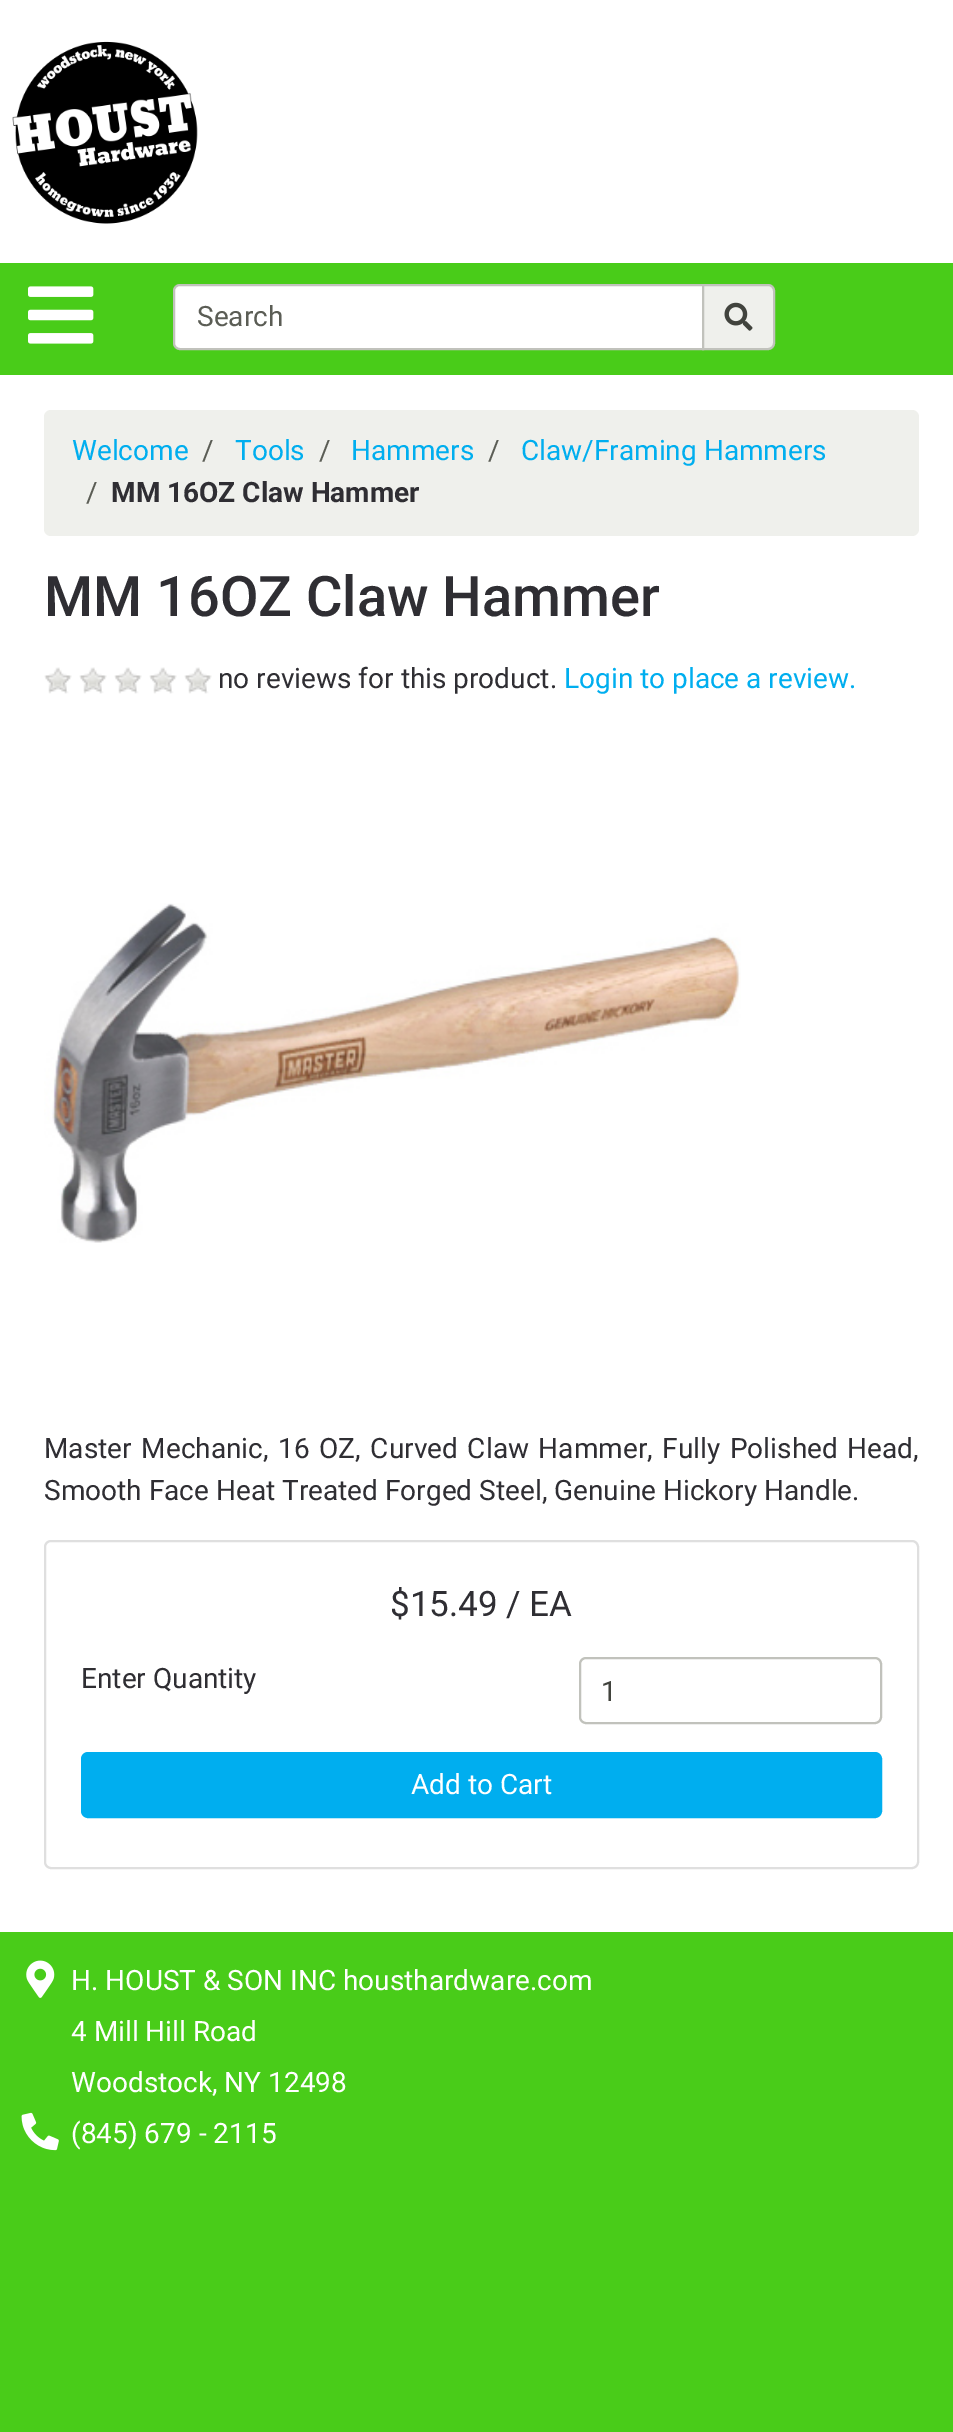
%!PS-Adobe-3.0
%%BoundingBox: 0 0 953 2432
%%LanguageLevel: 3
%%Pages: 1
%%EndComments
%%BeginProlog
/setink { 3 { 255 div 3 1 roll } repeat setrgbcolor } def
/usefont { [ exch dup neg 0 0 3 -1 roll 0 0 ] selectfont } def
/drawtext { setink usefont moveto show } def
/fillbox { setink rectfill } def
/rrect { 5 dict begin { /r /h /w /y /x } { exch def } forall
  x r add y moveto x w add y 2 copy h add r arct x w add y h add x 1 index r arct
  x y h add x y r arct x y 2 copy exch w add exch r arct closepath end } def
/drawimage { 5 dict begin { /h /w /y /x /name } { exch def } forall
  gsave x y translate w h scale
  w h 8 [w 0 0 h 0 0] name (r) file false 3 colorimage grestore end } def
%%EndProlog
%%BeginSetup
<< /PageSize [953 2432] >> setpagedevice
%%EndSetup
%%Page: 1 1
0 2432 translate 1 -1 scale
4 setmiterlimit
0 0 953 2432 73 204 25 fillbox
0 0 953 1932 255 255 255 fillbox
(assets/img1.rgb) 12 41 186 183 drawimage
0 263 953 112 73 204 25 fillbox
(assets/img2.rgb) 28 286 66 58 drawimage
255 255 255 setink
180 285 moveto 703 285 lineto 703 349 lineto 180 349 lineto 176.5 349 174 346.5 174 343 curveto 174 291 lineto 174 287.5 176.5 285 180 285 curveto closepath gsave fill grestore
193 194 188 setink
2 setlinewidth
stroke
(Search) 197 326 /Roboto-Regular 28 91 93 85 drawtext
239 240 236 setink
703 285 moveto 768 285 lineto 771.5 285 774 287.5 774 291 curveto 774 343 lineto 774 346.5 771.5 349 768 349 curveto 703 349 lineto closepath gsave fill grestore
193 194 188 setink
stroke
(assets/img3.rgb) 724 302 29 29 drawimage
239 240 236 setink
44 410 875 126 7 rrect fill
(Welcome) 72 460 /Roboto-Regular 28 0 174 239 drawtext
(/) 202 460 /Roboto-Regular 28 91 93 85 drawtext
(Tools) 235 460 /Roboto-Regular 28 0 174 239 drawtext
(/) 319 460 /Roboto-Regular 28 91 93 85 drawtext
(Hammers) 351 460 /Roboto-Regular 28 0 174 239 drawtext
(/) 488 460 /Roboto-Regular 28 91 93 85 drawtext
(Claw/Framing Hammers) 521 460 /Roboto-Regular 28 0 174 239 drawtext
(/) 86 502 /Roboto-Regular 28 91 93 85 drawtext
(MM 16OZ Claw Hammer) 111 502 /Roboto-Bold 28 47 46 51 drawtext
(MM 16OZ Claw Hammer) 44 616 /Roboto-Medium 56 47 46 51 drawtext
(assets/img4.rgb) 44 667 28 27 drawimage
(assets/img4.rgb) 79 667 28 27 drawimage
(assets/img5.rgb) 114 667 28 27 drawimage
(assets/img5.rgb) 149 667 28 27 drawimage
(assets/img4.rgb) 184 667 28 27 drawimage
(no reviews for this product.) 218 688 /Roboto-Regular 28 47 46 51 drawtext
(Login to place a review.) 564 688 /Roboto-Regular 28 0 174 239 drawtext
(assets/img6.rgb) 44 903 697 340 drawimage
47 46 51 setink
44 1458 moveto 2.75 0 32 (Master Mechanic, 16 OZ, Curved Claw Hammer, Fully Polished Head,) widthshow
(Smooth Face Heat Treated Forged Steel, Genuine Hickory Handle.) 44 1500 /Roboto-Regular 28 47 46 51 drawtext
223 223 223 setink
45 1541 873 327 6 rrect stroke
($15.49 / EA) 390 1616 /Roboto-Regular 35 47 46 51 drawtext
(Enter Quantity) 81 1688 /Roboto-Regular 28 47 46 51 drawtext
193 194 188 setink
580 1658 301 65 6 rrect stroke
(1) 601 1701 /Roboto-Regular 28 65 67 61 drawtext
0 174 239 setink
82 1753 799 64 6 rrect gsave fill grestore
stroke
(Add to Cart) 411 1794 /Roboto-Regular 28 255 255 255 drawtext
(assets/img7.rgb) 26 1960 29 38 drawimage
(H. HOUST & SON INC housthardware.com) 71 1990 /Roboto-Regular 28 255 255 255 drawtext
(4 Mill Hill Road) 71 2041 /Roboto-Regular 28 255 255 255 drawtext
(Woodstock, NY 12498) 71 2092 /Roboto-Regular 28 255 255 255 drawtext
(assets/img8.rgb) 21 2112 38 39 drawimage
(\(845\) 679 - 2115) 71 2143 /Roboto-Regular 28 255 255 255 drawtext
showpage
%%EOF
